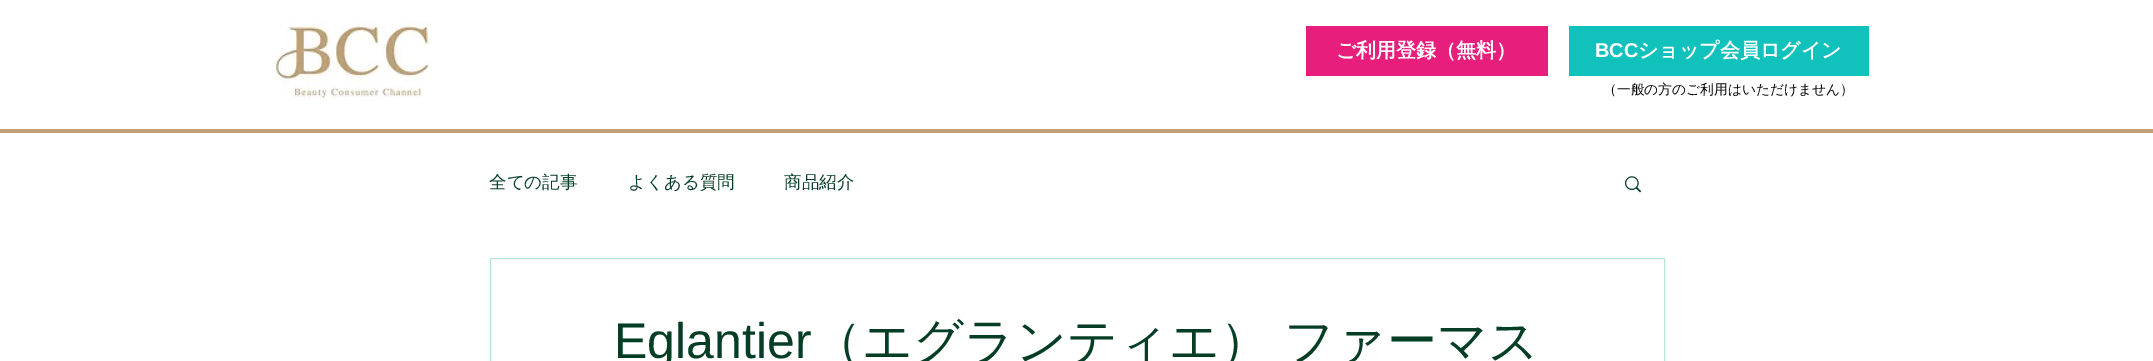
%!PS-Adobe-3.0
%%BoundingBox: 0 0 2153 361
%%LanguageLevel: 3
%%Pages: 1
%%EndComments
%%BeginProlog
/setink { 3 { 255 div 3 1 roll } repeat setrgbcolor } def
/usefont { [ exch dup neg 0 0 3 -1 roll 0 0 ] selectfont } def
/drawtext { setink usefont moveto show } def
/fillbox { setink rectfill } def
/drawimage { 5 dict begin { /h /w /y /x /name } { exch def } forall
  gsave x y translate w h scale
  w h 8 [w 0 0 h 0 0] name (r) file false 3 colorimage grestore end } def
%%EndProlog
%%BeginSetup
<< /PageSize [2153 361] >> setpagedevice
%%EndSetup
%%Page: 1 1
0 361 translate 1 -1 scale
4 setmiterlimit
0 0 2153 361 255 255 255 fillbox
(assets/img1.rgb) 275 22 157 79 drawimage
1306 26 242 50 232 30 124 fillbox
(ご利用登録（無料）) 1336 57 /WenQuanYiZenHei-Bold 20 255 255 255 drawtext
1569 26 300 50 17 193 187 fillbox
(BCC) 1595 57 /LiberationSans-Bold 20 255 255 255 drawtext
(ショップ会員ログイン) 1638 57 /WenQuanYiZenHei-Bold 20 255 255 255 drawtext
(（一般の方のご利用はいただけません）) 1603 94 /WenQuanYiZenHei-Medium 13.75 6 6 5 drawtext
0 129 2153 4 193 160 117 fillbox
(全ての記事) 489 188 /WenQuanYiZenHei-Medium 17.5 5 62 37 drawtext
(よくある質問) 628 188 /WenQuanYiZenHei-Medium 17.5 5 62 37 drawtext
(商品紹介) 784 188 /WenQuanYiZenHei-Medium 17.5 5 62 37 drawtext
(assets/img2.rgb) 1625 176 17 17 drawimage
180 232 210 setink
490.5 258.5 1174 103 rectstroke
(Eglantier) 614 358 /LiberationSans-Regular 50 5 62 37 drawtext
/WenQuanYiZenHei-Medium 50 usefont
812 358 moveto -1 0 32 (（エグランティエ） ファーマス) widthshow
showpage
%%EOF
